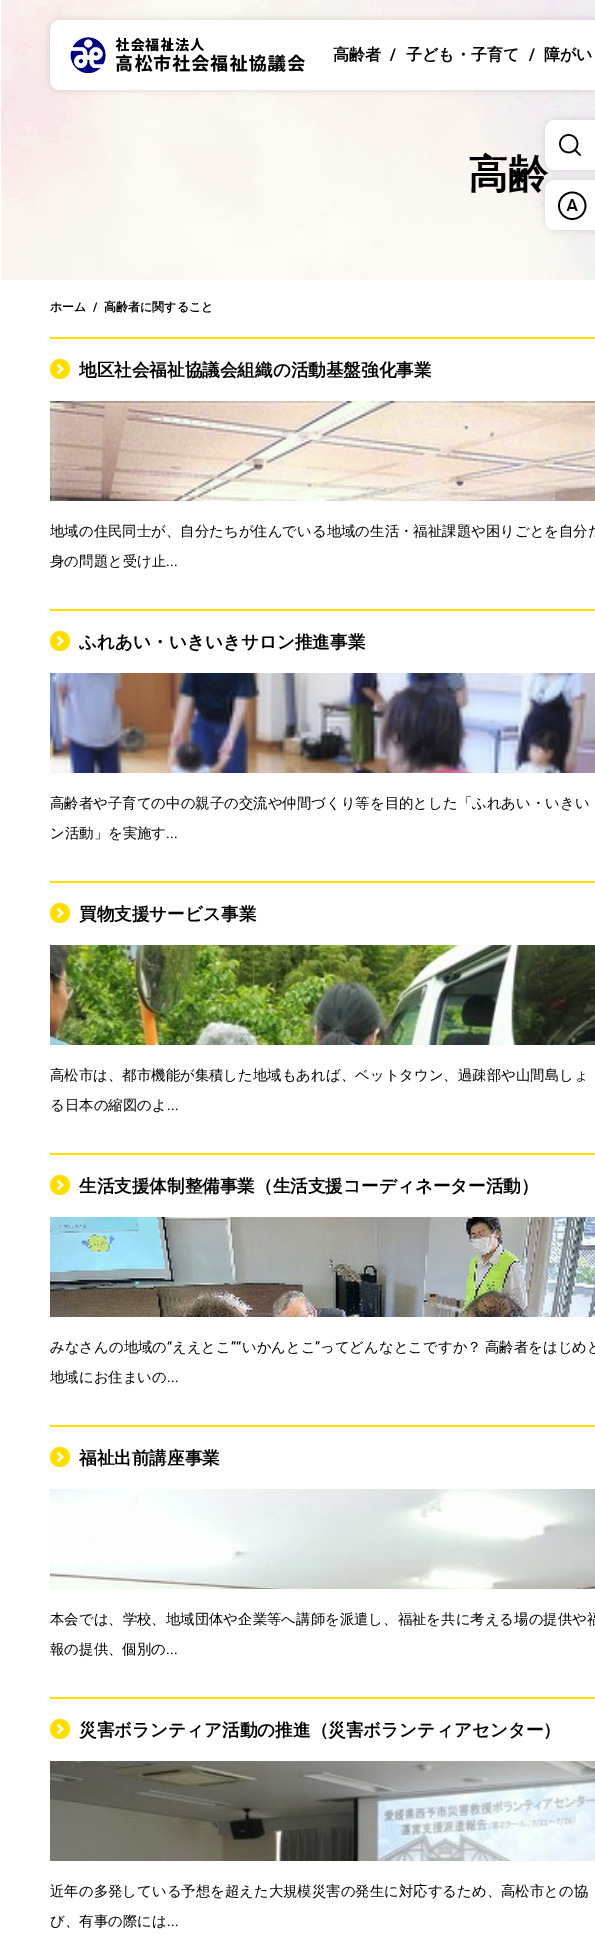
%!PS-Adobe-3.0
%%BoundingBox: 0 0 595 1934
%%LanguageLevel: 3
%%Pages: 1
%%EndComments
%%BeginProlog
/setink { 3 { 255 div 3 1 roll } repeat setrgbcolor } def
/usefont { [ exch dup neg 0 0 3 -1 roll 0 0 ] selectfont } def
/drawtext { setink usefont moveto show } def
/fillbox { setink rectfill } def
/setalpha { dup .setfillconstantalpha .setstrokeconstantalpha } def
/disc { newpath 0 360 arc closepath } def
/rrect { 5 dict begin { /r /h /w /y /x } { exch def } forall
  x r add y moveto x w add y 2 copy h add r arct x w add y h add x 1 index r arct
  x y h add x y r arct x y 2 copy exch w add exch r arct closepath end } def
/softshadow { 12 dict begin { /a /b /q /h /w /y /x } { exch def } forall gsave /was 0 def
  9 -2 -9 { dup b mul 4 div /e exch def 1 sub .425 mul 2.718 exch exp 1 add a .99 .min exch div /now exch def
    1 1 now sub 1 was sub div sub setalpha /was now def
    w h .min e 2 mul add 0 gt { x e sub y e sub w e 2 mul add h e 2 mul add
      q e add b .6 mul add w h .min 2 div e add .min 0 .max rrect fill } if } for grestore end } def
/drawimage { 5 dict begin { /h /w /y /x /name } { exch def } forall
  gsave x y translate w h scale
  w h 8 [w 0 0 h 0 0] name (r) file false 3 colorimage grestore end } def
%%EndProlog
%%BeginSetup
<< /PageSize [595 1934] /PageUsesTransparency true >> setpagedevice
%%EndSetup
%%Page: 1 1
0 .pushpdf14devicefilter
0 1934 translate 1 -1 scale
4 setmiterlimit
0 0 595 1934 255 255 255 fillbox
(assets/img4.rgb) 0 0 595 280 drawimage
0 0 0 setink
50 20 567 70 10 4 0.13 softshadow
255 255 255 setink
50 20 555 70 10 rrect fill
(assets/img1.rgb) 70 37 235 36 drawimage
(高齢者) 333 60 /WenQuanYiZenHei-Bold 16 0 0 0 drawtext
(/) 390 60 /Roboto-Bold 16 0 0 0 drawtext
(子ども・子育て) 406 60 /WenQuanYiZenHei-Bold 16 0 0 0 drawtext
(/) 529 60 /Roboto-Bold 16 0 0 0 drawtext
(障がい) 544 60 /WenQuanYiZenHei-Bold 16 0 0 0 drawtext
545 120 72 50 10 4 0.13 softshadow
(高齢) 468 188 /WenQuanYiZenHei-Bold 40 0 0 0 drawtext
255 255 255 setink
555 120 moveto 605 120 lineto 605 170 lineto 555 170 lineto 549.5 170 545 165.5 545 160 curveto 545 130 lineto 545 124.5 549.5 120 555 120 curveto closepath fill
(assets/img2.rgb) 559 134 22 22 drawimage
0 0 0 setink
545 180 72 50 10 4 0.13 softshadow
255 255 255 setink
555 180 moveto 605 180 lineto 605 230 lineto 555 230 lineto 549.5 230 545 225.5 545 220 curveto 545 190 lineto 545 184.5 549.5 180 555 180 curveto closepath fill
(assets/img3.rgb) 558 191 29 29 drawimage
(ホーム) 50 311 /WenQuanYiZenHei-Bold 12 0 0 0 drawtext
(/) 93 311 /Roboto-Bold 12 0 0 0 drawtext
(高齢者に関すること) 104 311 /WenQuanYiZenHei-Bold 12 0 0 0 drawtext
50 337 545 2 255 222 0 fillbox
60 369 10 disc fill
(地区社会福祉協議会組織の活動基盤強化事業) 79 376 /WenQuanYiZenHei-Bold 17.6 0 0 0 drawtext
255 255 255 setink
58.5 364 moveto 63.5 369 lineto 62 370.5 lineto 57 365.5 lineto closepath fill
62 367.5 moveto 63.5 369 lineto 58.5 374 lineto 57 372.5 lineto closepath fill
(assets/img5.rgb) 50 401 545 100 drawimage
(地域の住民同士が、自分たちが住んでいる地域の生活・福祉課題や困りごとを自分た) 50 536 /WenQuanYiZenHei-Medium 14.4 0 0 0 drawtext
(身の問題と受け止) 50 566 /WenQuanYiZenHei-Medium 14.4 0 0 0 drawtext
(...) 166 566 /Roboto-Regular 14.4 0 0 0 drawtext
50 609 545 2 255 222 0 fillbox
60 641 10 disc fill
(ふれあい・いきいきサロン推進事業) 79 648 /WenQuanYiZenHei-Bold 17.6 0 0 0 drawtext
255 255 255 setink
58.5 636 moveto 63.5 641 lineto 62 642.5 lineto 57 637.5 lineto closepath fill
62 639.5 moveto 63.5 641 lineto 58.5 646 lineto 57 644.5 lineto closepath fill
(assets/img6.rgb) 50 673 545 100 drawimage
(高齢者や子育ての中の親子の交流や仲間づくり等を目的とした「ふれあい・いきい) 50 808 /WenQuanYiZenHei-Medium 14.4 0 0 0 drawtext
(ン活動」を実施す) 50 838 /WenQuanYiZenHei-Medium 14.4 0 0 0 drawtext
(...) 166 838 /Roboto-Regular 14.4 0 0 0 drawtext
50 881 545 2 255 222 0 fillbox
60 913 10 disc fill
(買物支援サービス事業) 79 920 /WenQuanYiZenHei-Bold 17.6 0 0 0 drawtext
255 255 255 setink
58.5 908 moveto 63.5 913 lineto 62 914.5 lineto 57 909.5 lineto closepath fill
62 911.5 moveto 63.5 913 lineto 58.5 918 lineto 57 916.5 lineto closepath fill
(assets/img7.rgb) 50 945 545 100 drawimage
(高松市は、都市機能が集積した地域もあれば、ベットタウン、過疎部や山間島しょ) 50 1080 /WenQuanYiZenHei-Medium 14.4 0 0 0 drawtext
(る日本の縮図のよ) 50 1110 /WenQuanYiZenHei-Medium 14.4 0 0 0 drawtext
(...) 167 1110 /Roboto-Regular 14.4 0 0 0 drawtext
50 1153 545 2 255 222 0 fillbox
60 1185 10 disc fill
(生活支援体制整備事業（生活支援コーディネーター活動）) 79 1192 /WenQuanYiZenHei-Bold 17.6 0 0 0 drawtext
255 255 255 setink
58.5 1180 moveto 63.5 1185 lineto 62 1186.5 lineto 57 1181.5 lineto closepath fill
62 1183.5 moveto 63.5 1185 lineto 58.5 1190 lineto 57 1188.5 lineto closepath fill
(assets/img8.rgb) 50 1217 545 100 drawimage
(みなさんの地域の) 50 1352 /WenQuanYiZenHei-Medium 14.4 0 0 0 drawtext
(“) 167 1352 /Roboto-Regular 14.4 0 0 0 drawtext
(ええとこ) 172 1352 /WenQuanYiZenHei-Medium 14.4 0 0 0 drawtext
(”“) 231 1352 /Roboto-Regular 14.4 0 0 0 drawtext
(いかんとこ) 242 1352 /WenQuanYiZenHei-Medium 14.4 0 0 0 drawtext
(”) 315 1352 /Roboto-Regular 14.4 0 0 0 drawtext
/WenQuanYiZenHei-Medium 14.4 usefont
320 1352 moveto -1 0 32 (ってどんなとこですか？ 高齢者をはじめと) widthshow
(地域にお住まいの) 50 1382 /WenQuanYiZenHei-Medium 14.4 0 0 0 drawtext
(...) 167 1382 /Roboto-Regular 14.4 0 0 0 drawtext
50 1425 545 2 255 222 0 fillbox
60 1457 10 disc fill
(福祉出前講座事業) 79 1464 /WenQuanYiZenHei-Bold 17.6 0 0 0 drawtext
255 255 255 setink
58.5 1452 moveto 63.5 1457 lineto 62 1458.5 lineto 57 1453.5 lineto closepath fill
62 1455.5 moveto 63.5 1457 lineto 58.5 1462 lineto 57 1460.5 lineto closepath fill
(assets/img9.rgb) 50 1489 545 100 drawimage
(本会では、学校、地域団体や企業等へ講師を派遣し、福祉を共に考える場の提供や福) 50 1624 /WenQuanYiZenHei-Medium 14.4 0 0 0 drawtext
(報の提供、個別の) 50 1654 /WenQuanYiZenHei-Medium 14.4 0 0 0 drawtext
(...) 166 1654 /Roboto-Regular 14.4 0 0 0 drawtext
50 1697 545 2 255 222 0 fillbox
60 1729 10 disc fill
(災害ボランティア活動の推進（災害ボランティアセンター）) 79 1736 /WenQuanYiZenHei-Bold 17.6 0 0 0 drawtext
255 255 255 setink
58.5 1724 moveto 63.5 1729 lineto 62 1730.5 lineto 57 1725.5 lineto closepath fill
62 1727.5 moveto 63.5 1729 lineto 58.5 1734 lineto 57 1732.5 lineto closepath fill
(assets/img10.rgb) 50 1761 545 100 drawimage
(近年の多発している予想を超えた大規模災害の発生に対応するため、高松市との協) 50 1896 /WenQuanYiZenHei-Medium 14.4 0 0 0 drawtext
(び、有事の際には) 50 1926 /WenQuanYiZenHei-Medium 14.4 0 0 0 drawtext
(...) 167 1926 /Roboto-Regular 14.4 0 0 0 drawtext
.poppdf14devicefilter showpage
%%EOF
